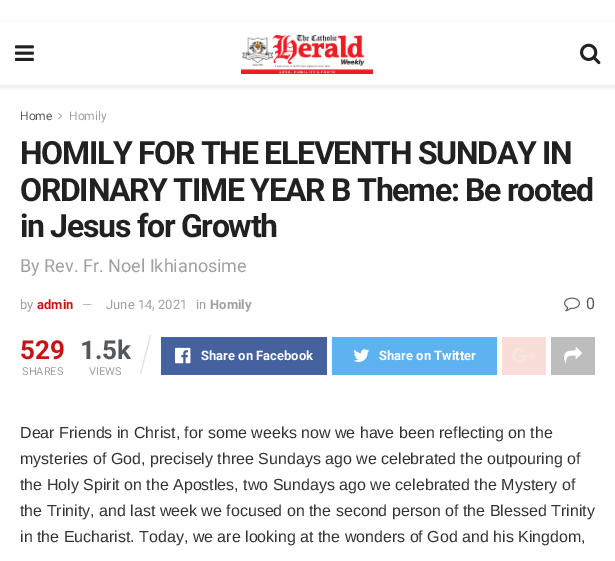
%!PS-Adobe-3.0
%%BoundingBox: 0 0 615 561
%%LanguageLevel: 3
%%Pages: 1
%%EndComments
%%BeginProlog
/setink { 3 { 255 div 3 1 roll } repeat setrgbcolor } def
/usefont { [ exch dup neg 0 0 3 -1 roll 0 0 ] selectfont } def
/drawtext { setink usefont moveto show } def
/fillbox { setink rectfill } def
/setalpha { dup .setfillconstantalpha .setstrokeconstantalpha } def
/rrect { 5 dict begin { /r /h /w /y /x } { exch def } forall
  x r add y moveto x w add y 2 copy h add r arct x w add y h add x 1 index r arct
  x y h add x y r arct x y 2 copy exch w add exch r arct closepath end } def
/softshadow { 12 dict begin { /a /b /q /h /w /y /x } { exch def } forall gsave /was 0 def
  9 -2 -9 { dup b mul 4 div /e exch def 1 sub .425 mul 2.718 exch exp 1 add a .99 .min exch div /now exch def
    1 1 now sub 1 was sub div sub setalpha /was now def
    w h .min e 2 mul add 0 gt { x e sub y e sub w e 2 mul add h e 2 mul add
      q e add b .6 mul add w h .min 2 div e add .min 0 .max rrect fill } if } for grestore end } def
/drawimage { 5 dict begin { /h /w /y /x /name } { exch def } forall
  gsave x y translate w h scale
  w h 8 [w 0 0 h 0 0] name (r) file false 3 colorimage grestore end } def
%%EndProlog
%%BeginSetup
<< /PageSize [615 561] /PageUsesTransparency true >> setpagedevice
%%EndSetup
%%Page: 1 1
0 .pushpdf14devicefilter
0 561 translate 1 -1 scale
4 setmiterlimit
0 0 615 561 255 255 255 fillbox
gsave
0 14 moveto 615 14 lineto 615 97 lineto 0 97 lineto closepath 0 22 moveto 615 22 lineto 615 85 lineto 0 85 lineto closepath eoclip newpath
0 0 0 setink
0 24 615 63 0 3 0.1 softshadow
grestore
(assets/img1.rgb) 15 45 19 16 drawimage
(assets/img2.rgb) 241 34 132 40 drawimage
(assets/img3.rgb) 580 43 21 22 drawimage
(Home) 20 120 /Roboto-Regular 12 83 88 92 drawtext
(assets/img4.rgb) 58 112 4 8 drawimage
(Homily) 69 120 /Roboto-Regular 12 160 160 160 drawtext
/Roboto-Bold 32 usefont
33 33 33 setink
20 164 moveto -1.3 0 (HOMILY FOR THE ELEVENTH SUNDAY IN) ashow
20 201 moveto -1.3 0 (ORDINARY TIME YEAR B Theme: Be rooted) ashow
20 237 moveto -1.3 0 (in Jesus for Growth) ashow
(By Rev. Fr. Noel Ikhianosime) 20 272 /Roboto-Regular 18 160 160 160 drawtext
(by) 20 309 /Roboto-Regular 13 160 160 160 drawtext
(admin) 37 309 /Roboto-Bold 13 201 18 18 drawtext
(—) 82 309 /Roboto-Regular 13 160 160 160 drawtext
(June 14, 2021) 106 309 /Roboto-Regular 13 160 160 160 drawtext
(in) 196 309 /Roboto-Regular 13 160 160 160 drawtext
(Homily) 210 309 /Roboto-Bold 13 160 160 160 drawtext
(assets/img5.rgb) 564 297 16 15 drawimage
(0) 586 309 /Roboto-Regular 16 83 88 92 drawtext
(529) 20 359 /Roboto-Bold 26 201 18 18 drawtext
(SHARES) 22 375 /Roboto-Regular 11 160 160 160 drawtext
(1.5k) 80 359 /Roboto-Bold 26 83 88 92 drawtext
224 224 224 setink
150 335 moveto 151 335.5 lineto 141 374 lineto 140 374 lineto closepath fill
(VIEWS) 89 375 /Roboto-Regular 11 160 160 160 drawtext
161 337 166 38 69 98 159 fillbox
(assets/img6.rgb) 175 347 16 17 drawimage
(Share on Facebook) 201 360 /Roboto-Bold 13 255 255 255 drawtext
332 337 165 38 94 178 239 fillbox
(assets/img7.rgb) 353 349 17 13 drawimage
(Share on Twitter) 379 360 /Roboto-Bold 13 255 255 255 drawtext
502 337 44 38 249 221 217 fillbox
(assets/img8.rgb) 512 348 23 15 drawimage
551 337 44 38 189 189 189 fillbox
(assets/img9.rgb) 564 347 18 17 drawimage
(Dear Friends in Christ, for some weeks now we have been reflecting on the) 20 438 /LiberationSans-Regular 16 51 51 51 drawtext
(mysteries of God, precisely three Sundays ago we celebrated the outpouring of) 20 464 /LiberationSans-Regular 16 51 51 51 drawtext
(the Holy Spirit on the Apostles, two Sundays ago we celebrated the Mystery of) 20 490 /LiberationSans-Regular 16 51 51 51 drawtext
(the Trinity, and last week we focused on the second person of the Blessed Trinity) 20 516 /LiberationSans-Regular 16 51 51 51 drawtext
(in the Eucharist. Today, we are looking at the wonders of God and his Kingdom,) 20 542 /LiberationSans-Regular 16 51 51 51 drawtext
.poppdf14devicefilter showpage
%%EOF
